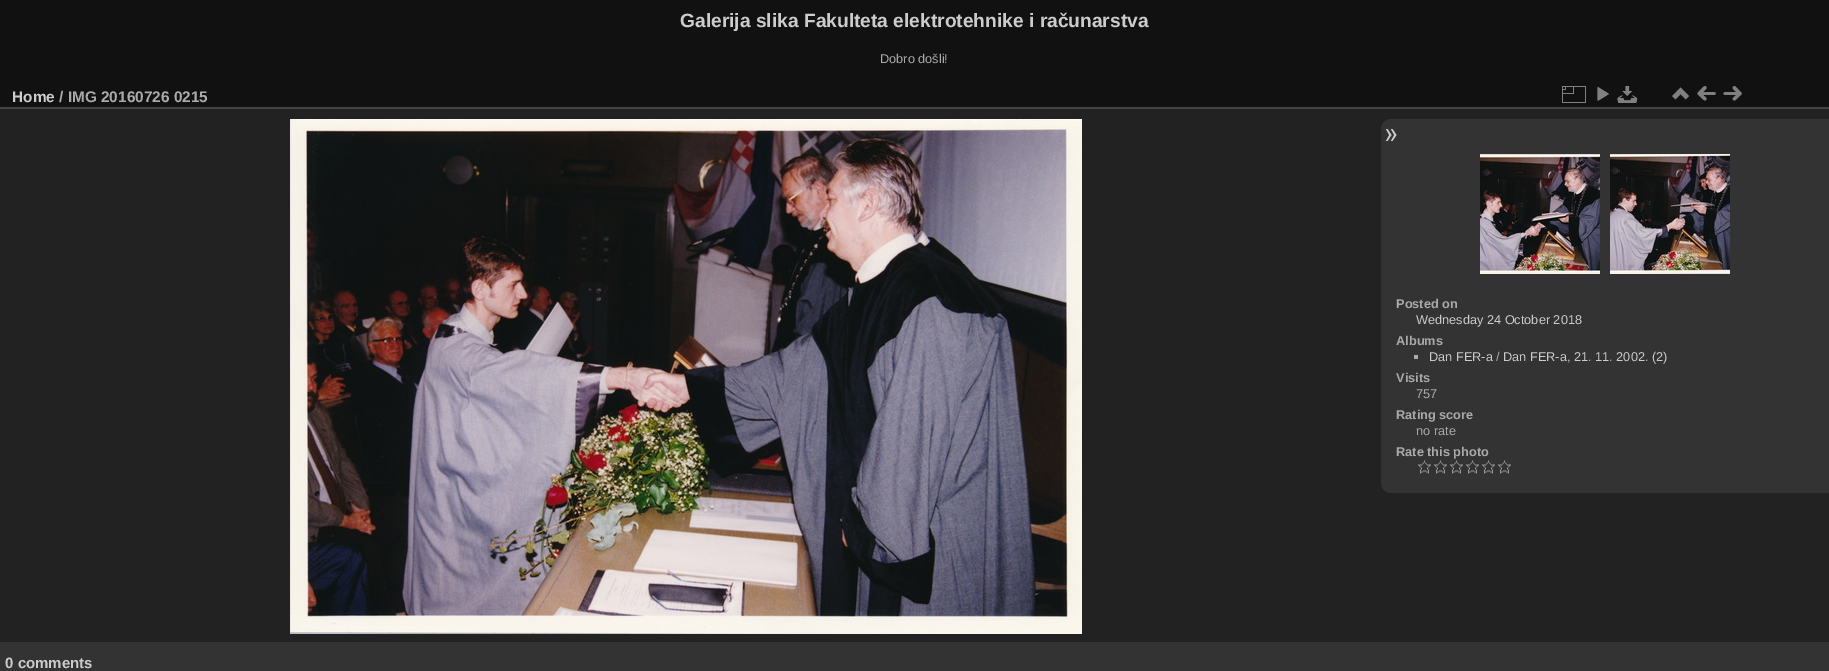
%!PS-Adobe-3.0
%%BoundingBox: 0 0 1829 671
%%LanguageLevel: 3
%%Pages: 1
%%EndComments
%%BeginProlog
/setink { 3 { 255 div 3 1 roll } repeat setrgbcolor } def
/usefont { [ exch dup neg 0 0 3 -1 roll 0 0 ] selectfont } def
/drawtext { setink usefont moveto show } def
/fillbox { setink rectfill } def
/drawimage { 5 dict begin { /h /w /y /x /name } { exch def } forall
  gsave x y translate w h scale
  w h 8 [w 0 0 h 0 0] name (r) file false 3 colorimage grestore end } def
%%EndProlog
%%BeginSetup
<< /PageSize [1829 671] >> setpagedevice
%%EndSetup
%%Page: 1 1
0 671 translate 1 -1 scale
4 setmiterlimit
0 0 1829 671 17 17 17 fillbox
(Galerija slika Fakulteta elektrotehnike i računarstva) 680 27 /LiberationSans-Bold 19.2 204 204 204 drawtext
(Dobro došli!) 880 63 /LiberationSans-Regular 12.75 170 170 170 drawtext
0 109 1829 533 34 34 34 fillbox
0 107 1829 2 68 68 68 fillbox
(Home) 12 102 /LiberationSans-Bold 15.4 204 204 204 drawtext
(/ IMG 20160726 0215) 59 102 /LiberationSans-Bold 15.4 170 170 170 drawtext
(assets/img1.rgb) 1562 86 24 17 drawimage
(assets/img2.rgb) 1597 87 12 14 drawimage
(assets/img3.rgb) 1617 86 21 17 drawimage
(assets/img4.rgb) 1672 87 17 13 drawimage
(assets/img5.rgb) 1697 86 19 15 drawimage
(assets/img6.rgb) 1723 86 19 15 drawimage
(assets/img7.rgb) 290 119 792 515 drawimage
51 51 51 setink
1391 119 moveto 1829 119 lineto 1829 493 lineto 1391 493 lineto 1385.5 493 1381 488.5 1381 483 curveto 1381 129 lineto 1381 123.5 1385.5 119 1391 119 curveto closepath fill
(assets/img8.rgb) 1385 129 12 12 drawimage
(assets/img9.rgb) 1480 154 120 120 drawimage
(assets/img10.rgb) 1610 154 120 120 drawimage
(Posted on) 1396 308 /LiberationSans-Bold 12.75 170 170 170 drawtext
(Wednesday 24 October 2018) 1416 324 /LiberationSans-Regular 12.75 204 204 204 drawtext
(Albums) 1396 345 /LiberationSans-Bold 12.75 170 170 170 drawtext
1414 355 4 4 170 170 170 fillbox
(Dan FER-a) 1429 361 /LiberationSans-Regular 12.75 204 204 204 drawtext
(/) 1496 361 /LiberationSans-Regular 12.75 170 170 170 drawtext
(Dan FER-a, 21. 11. 2002. \(2\)) 1503 361 /LiberationSans-Regular 12.75 204 204 204 drawtext
(Visits) 1396 382 /LiberationSans-Bold 12.75 170 170 170 drawtext
(757) 1416 398 /LiberationSans-Regular 12.75 170 170 170 drawtext
(Rating score) 1396 419 /LiberationSans-Bold 12.75 170 170 170 drawtext
(no rate) 1416 435 /LiberationSans-Regular 12.75 170 170 170 drawtext
(Rate this photo) 1396 456 /LiberationSans-Bold 12.75 170 170 170 drawtext
(assets/img11.rgb) 1418 460 13 14 drawimage
(assets/img11.rgb) 1434 460 13 14 drawimage
(assets/img11.rgb) 1450 460 13 14 drawimage
(assets/img11.rgb) 1466 460 13 14 drawimage
(assets/img11.rgb) 1482 460 13 14 drawimage
(assets/img11.rgb) 1498 460 13 14 drawimage
0 642 1829 29 51 51 51 fillbox
(0 comments) 5 668 /LiberationSans-Bold 15 204 204 204 drawtext
showpage
%%EOF
